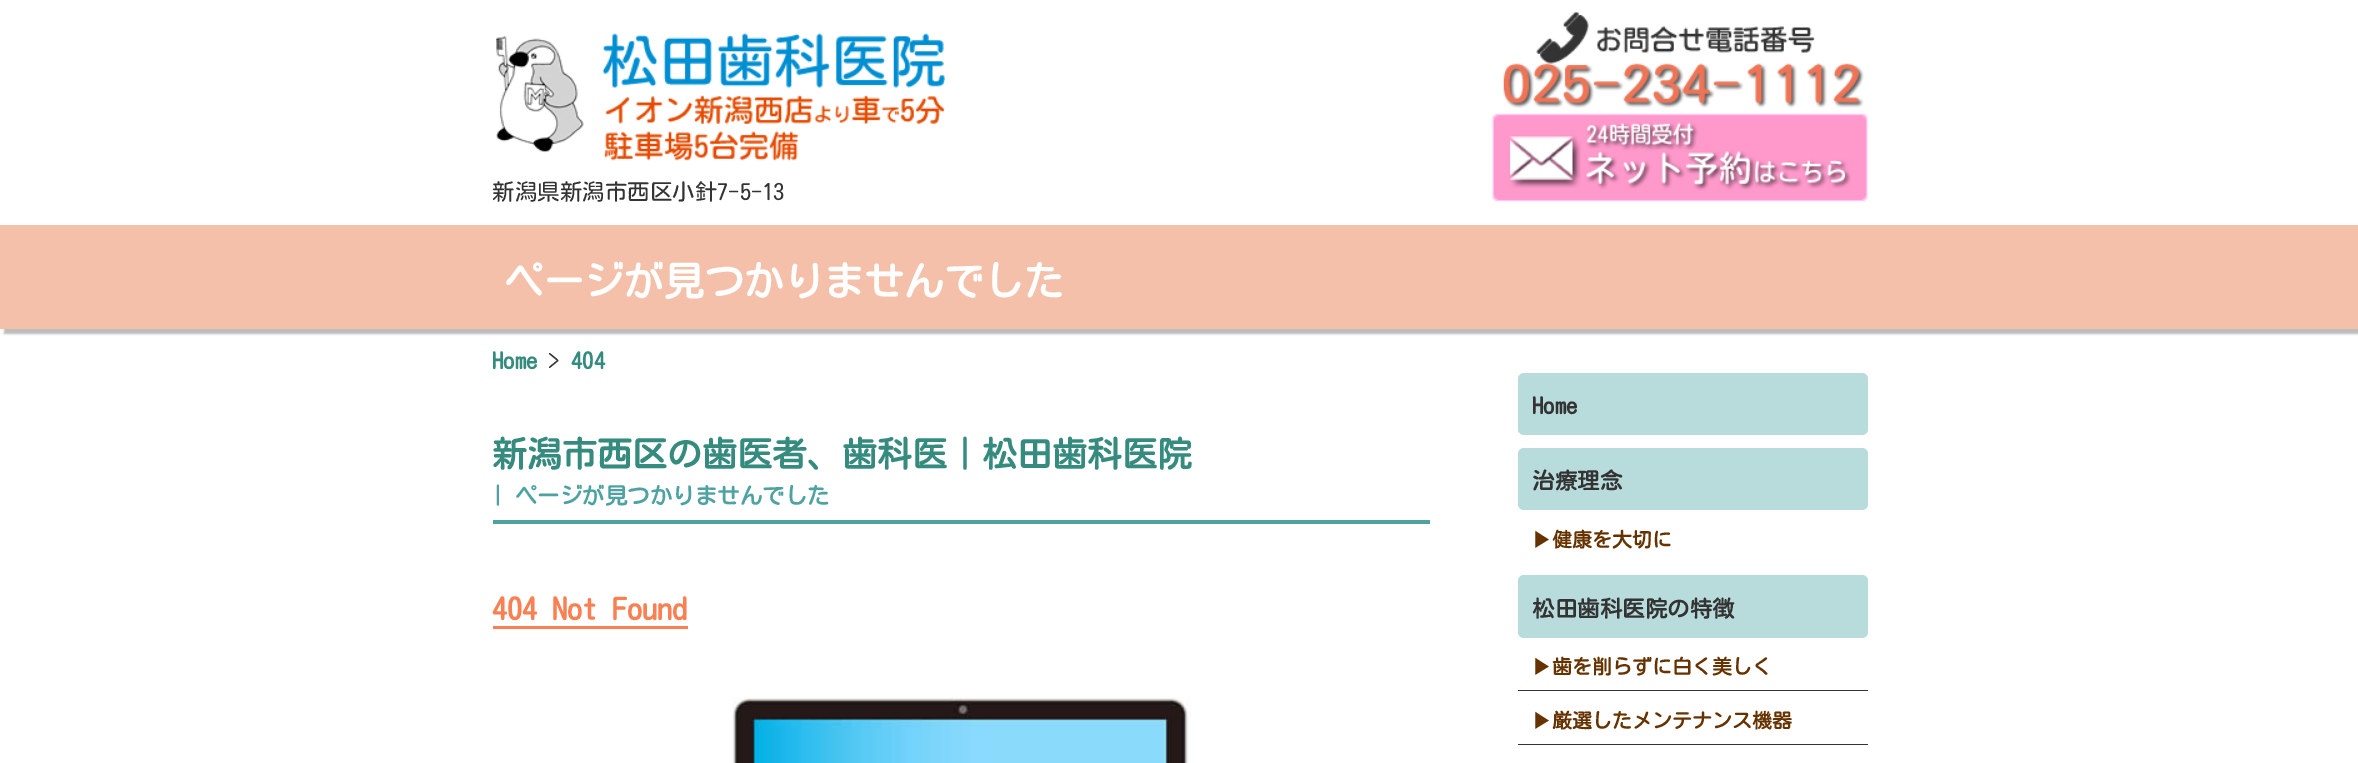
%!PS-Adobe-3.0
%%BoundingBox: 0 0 2358 763
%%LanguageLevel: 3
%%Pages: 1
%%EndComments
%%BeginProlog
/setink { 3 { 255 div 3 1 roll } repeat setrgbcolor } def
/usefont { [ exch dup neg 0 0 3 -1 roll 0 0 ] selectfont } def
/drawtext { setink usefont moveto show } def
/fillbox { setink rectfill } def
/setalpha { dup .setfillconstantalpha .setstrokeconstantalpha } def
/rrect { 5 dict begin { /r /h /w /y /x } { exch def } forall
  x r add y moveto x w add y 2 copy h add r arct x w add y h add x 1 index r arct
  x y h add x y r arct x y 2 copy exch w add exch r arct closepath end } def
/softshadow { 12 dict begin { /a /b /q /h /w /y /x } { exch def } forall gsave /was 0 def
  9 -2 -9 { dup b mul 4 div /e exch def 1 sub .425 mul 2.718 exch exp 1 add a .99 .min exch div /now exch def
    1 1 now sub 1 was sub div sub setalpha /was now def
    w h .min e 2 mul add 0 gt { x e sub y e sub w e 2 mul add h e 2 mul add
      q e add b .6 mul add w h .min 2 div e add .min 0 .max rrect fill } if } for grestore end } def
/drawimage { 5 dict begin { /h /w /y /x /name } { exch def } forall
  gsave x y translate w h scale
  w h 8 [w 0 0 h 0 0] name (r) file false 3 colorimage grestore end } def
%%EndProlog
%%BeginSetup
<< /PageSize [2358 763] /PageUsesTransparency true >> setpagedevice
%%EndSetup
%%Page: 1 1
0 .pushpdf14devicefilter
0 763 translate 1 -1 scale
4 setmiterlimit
0 0 2358 763 255 255 255 fillbox
0 225 2358 3 244 192 170 fillbox
(assets/img1.rgb) 496 33 449 128 drawimage
(新潟県新潟市西区小針7-5-13) 492 200 /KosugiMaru-Regular 22.5 51 51 51 drawtext
(assets/img2.rgb) 1503 12 361 96 drawimage
(assets/img3.rgb) 1492 113 376 89 drawimage
187 187 187 setink
4 233 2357 101 0 1 1 softshadow
0 228 2358 101 244 192 170 fillbox
(ページが見つかりませんでした) 504 296 /KosugiMaru-Bold 40 255 255 255 drawtext
(Home) 492 369 /KosugiMaru-Bold 22.5 52 139 126 drawtext
(>) 548 369 /KosugiMaru-Regular 22.5 51 51 51 drawtext
(404) 571 369 /KosugiMaru-Bold 22.5 52 139 126 drawtext
493 520 937 4 79 162 162 fillbox
(新潟市西区の歯医者、歯科医｜松田歯科医院) 492 467 /KosugiMaru-Bold 35 52 139 126 drawtext
(| ページが見つかりませんでした) 492 504 /KosugiMaru-Bold 22.5 79 162 162 drawtext
(404 Not Found) 492 620 /KosugiMaru-Bold 30 248 128 82 drawtext
493 626 195 3 248 128 82 fillbox
(assets/img4.rgb) 732 697 459 66 drawimage
184 220 220 setink
1518 373 350 62 6 rrect fill
(Home) 1532 414 /KosugiMaru-Bold 22.5 51 51 51 drawtext
184 220 220 setink
1518 448 350 62 6 rrect fill
(治療理念) 1532 489 /KosugiMaru-Bold 22.5 51 51 51 drawtext
(▶) 1532 547 /WenQuanYiZenHei-Bold 20 102 51 0 drawtext
(健康を大切に) 1552 547 /KosugiMaru-Bold 20 102 51 0 drawtext
184 220 220 setink
1518 575 350 63 6 rrect fill
(松田歯科医院の特徴) 1532 617 /KosugiMaru-Bold 22.5 51 51 51 drawtext
1518 690 350 1 51 51 51 fillbox
(▶) 1532 674 /WenQuanYiZenHei-Bold 20 102 51 0 drawtext
(歯を削らずに白く美しく) 1552 674 /KosugiMaru-Bold 20 102 51 0 drawtext
1518 744 350 1 51 51 51 fillbox
(▶) 1532 728 /WenQuanYiZenHei-Bold 20 102 51 0 drawtext
(厳選したメンテナンス機器) 1552 728 /KosugiMaru-Bold 20 102 51 0 drawtext
.poppdf14devicefilter showpage
%%EOF
